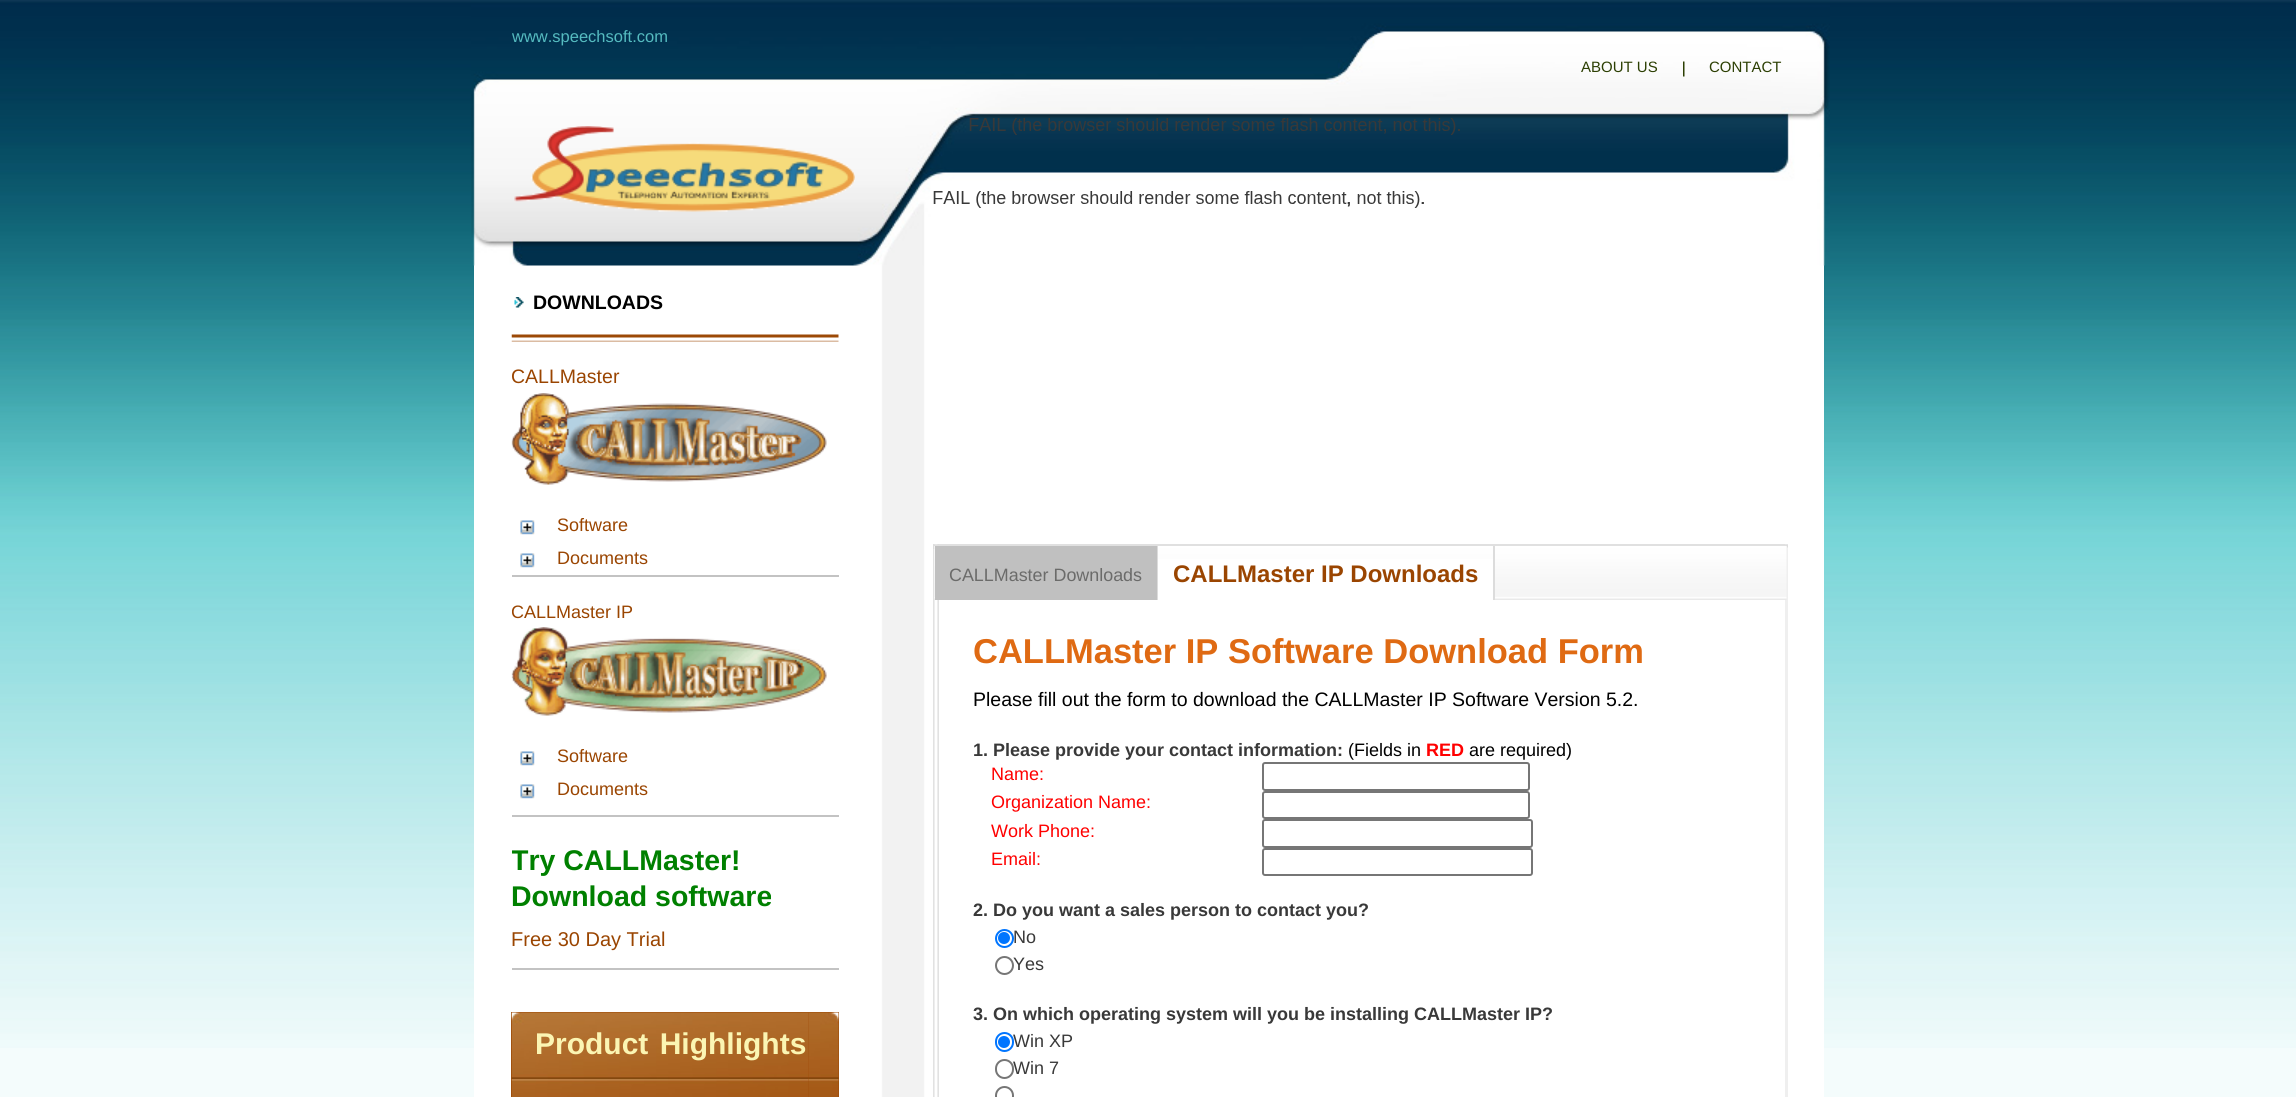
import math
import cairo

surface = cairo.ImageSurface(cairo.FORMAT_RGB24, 2296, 1097)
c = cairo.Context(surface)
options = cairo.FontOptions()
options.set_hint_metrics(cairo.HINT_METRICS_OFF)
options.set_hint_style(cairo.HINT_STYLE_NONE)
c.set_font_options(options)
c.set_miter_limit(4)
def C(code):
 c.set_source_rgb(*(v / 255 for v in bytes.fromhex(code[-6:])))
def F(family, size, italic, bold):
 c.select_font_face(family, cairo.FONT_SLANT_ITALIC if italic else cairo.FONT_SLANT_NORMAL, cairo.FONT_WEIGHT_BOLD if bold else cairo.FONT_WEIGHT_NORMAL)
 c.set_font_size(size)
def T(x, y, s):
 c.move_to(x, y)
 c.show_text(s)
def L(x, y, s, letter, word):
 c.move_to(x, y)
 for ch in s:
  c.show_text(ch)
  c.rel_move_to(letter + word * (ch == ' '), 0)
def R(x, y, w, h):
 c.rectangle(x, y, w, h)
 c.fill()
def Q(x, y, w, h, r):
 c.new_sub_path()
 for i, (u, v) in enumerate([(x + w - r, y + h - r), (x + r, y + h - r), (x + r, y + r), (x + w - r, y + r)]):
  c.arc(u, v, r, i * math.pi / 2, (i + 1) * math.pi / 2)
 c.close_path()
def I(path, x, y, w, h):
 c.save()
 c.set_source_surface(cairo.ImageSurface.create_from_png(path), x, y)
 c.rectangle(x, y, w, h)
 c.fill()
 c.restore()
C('f4fcfc')
c.paint()
I('1.png',0,0,2296,1048)
I('2.png',474,265,1350,832)
I('3.png',471,0,1359,266)
F('Liberation Sans',16.5,0,0)
C('55bbc0')
T(512,42,'www.speechsoft.com')
F('Liberation Sans',15,0,0)
C('2c3f03')
T(1581,72,'ABOUT US')
I('4.png',1683,61,2,16)
T(1709,72,'CONTACT')
I('5.png',514,126,341,86)
I('6.png',969,118,491,17)
I('7.png',933,191,491,17)
F('Liberation Sans',18,0,0)
C('393939')
T(1346,204,',')
T(1420,204,'.')
I('8.png',511,334,328,8)
I('9.png',514,297,10,11)
F('Liberation Sans',19.5,0,1)
C('000000')
T(533,309,'DOWNLOADS')
C('c3c3c3')
R(512,575,327,2)
c.save()
c.rectangle(512,363,327,212)
c.clip()
F('Liberation Sans',19.5,0,0)
C('9a4501')
T(511,383,'CALLMaster')
c.restore()
I('10.png',511,393,316,92)
I('11.png',520,520,15,15)
F('Liberation Sans',18,0,0)
C('9a4501')
T(557,531,'Software')
I('11.png',520,553,15,15)
T(557,564,'Documents')
C('c3c3c3')
R(512,815,327,2)
c.save()
c.rectangle(512,576,327,239)
c.clip()
C('9a4501')
T(511,618,'CALLMaster IP')
c.restore()
I('12.png',511,627,316,89)
I('11.png',520,751,15,15)
C('9a4501')
T(557,762,'Software')
I('11.png',520,784,15,15)
T(557,795,'Documents')
C('c3c3c3')
R(512,968,327,2)
c.save()
c.rectangle(512,833,327,135)
c.clip()
F('Liberation Sans',28.5,0,1)
C('008000')
T(511,870,'Try CALLMaster!')
c.restore()
F('Liberation Sans',28.5,0,1)
C('008000')
T(511,906,'Download software')
F('Liberation Sans',20,0,0)
C('9a4501')
T(511,946,'Free 30 Day Trial')
C('9c4905')
R(511,1012,328,85)
I('13.png',511,1012,298,85)
I('14.png',808,1012,31,85)
F('Liberation Sans',30,0,1)
C('fbf5b3')
L(535,1054,'Product Highlights',0,3)
C('e0e0e0')
R(933,544,855,2)
I('15.png',933,544,6,553)
C('efefef')
R(1785,544,3,553)
I('16.png',933,544,6,5)
I('17.png',1785,544,3,4)
I('18.png',934,546,853,54)
C('c0c0c0')
R(935,546,222,54)
C('dcdcdc')
R(1157,546,1,54)
F('Liberation Sans',17.9,0,0)
C('6b6b6a')
T(949,581,'CALLMaster Downloads')
C('ffffff')
R(1158,559,335,41)
C('dcdcdc')
R(1493,546,2,54)
F('Liberation Sans',24,0,1)
C('9a4501')
T(1173,582,'CALLMaster IP Downloads')
F('Liberation Sans',34.5,0,1)
C('df6a13')
T(973,663,'CALLMaster IP Software Download Form')
F('Liberation Sans',19.5,0,0)
C('000000')
T(973,706,'Please fill out the form to download the CALLMaster IP Software Version 5.2.')
F('Liberation Sans',18,0,1)
C('393939')
T(973,756,'1. Please provide your contact information:')
F('Liberation Sans',18,0,0)
C('000000')
T(1348,756,'(Fields in')
F('Liberation Sans',18,0,1)
C('ff0000')
T(1426,756,'RED')
F('Liberation Sans',18,0,0)
C('000000')
T(1469,756,'are required)')
C('ff0000')
T(991,780,'Name:')
Q(1263,763,266,27,2)
C('767676')
c.stroke()
C('ff0000')
T(991,808,'Organization Name:')
Q(1263,792,266,26,2)
C('767676')
c.stroke()
C('ff0000')
T(991,837,'Work Phone:')
Q(1263,820,269,27,2)
C('767676')
c.stroke()
C('ff0000')
T(991,865,'Email:')
Q(1263,849,269,26,2)
C('767676')
c.stroke()
F('Liberation Sans',18,0,1)
C('393939')
T(973,916,'2. Do you want a sales person to contact you?')
c.new_path()
c.arc(1004.5,938.5,8.5,0,2 * math.pi)
C('0075ff')
c.stroke()
c.arc(1004,938,6,0,2 * math.pi)
c.fill()
F('Liberation Sans',18,0,0)
C('393939')
T(1013,943,'No')
c.new_path()
c.arc(1004.5,965.5,8.5,0,2 * math.pi)
C('767676')
c.stroke()
C('393939')
T(1013,970,'Yes')
F('Liberation Sans',18,0,1)
T(973,1020,'3. On which operating system will you be installing CALLMaster IP?')
Q(996,1033,17,18,8.5)
C('0075ff')
c.stroke()
c.arc(1004,1042,6,0,2 * math.pi)
c.fill()
F('Liberation Sans',18,0,0)
C('393939')
T(1013,1047,'Win XP')
Q(996,1060,17,18,8.5)
C('767676')
c.stroke()
C('393939')
T(1013,1074,'Win 7')
Q(996,1087,17,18,8.5)
C('767676')
c.stroke()
surface.write_to_png('o.png')
